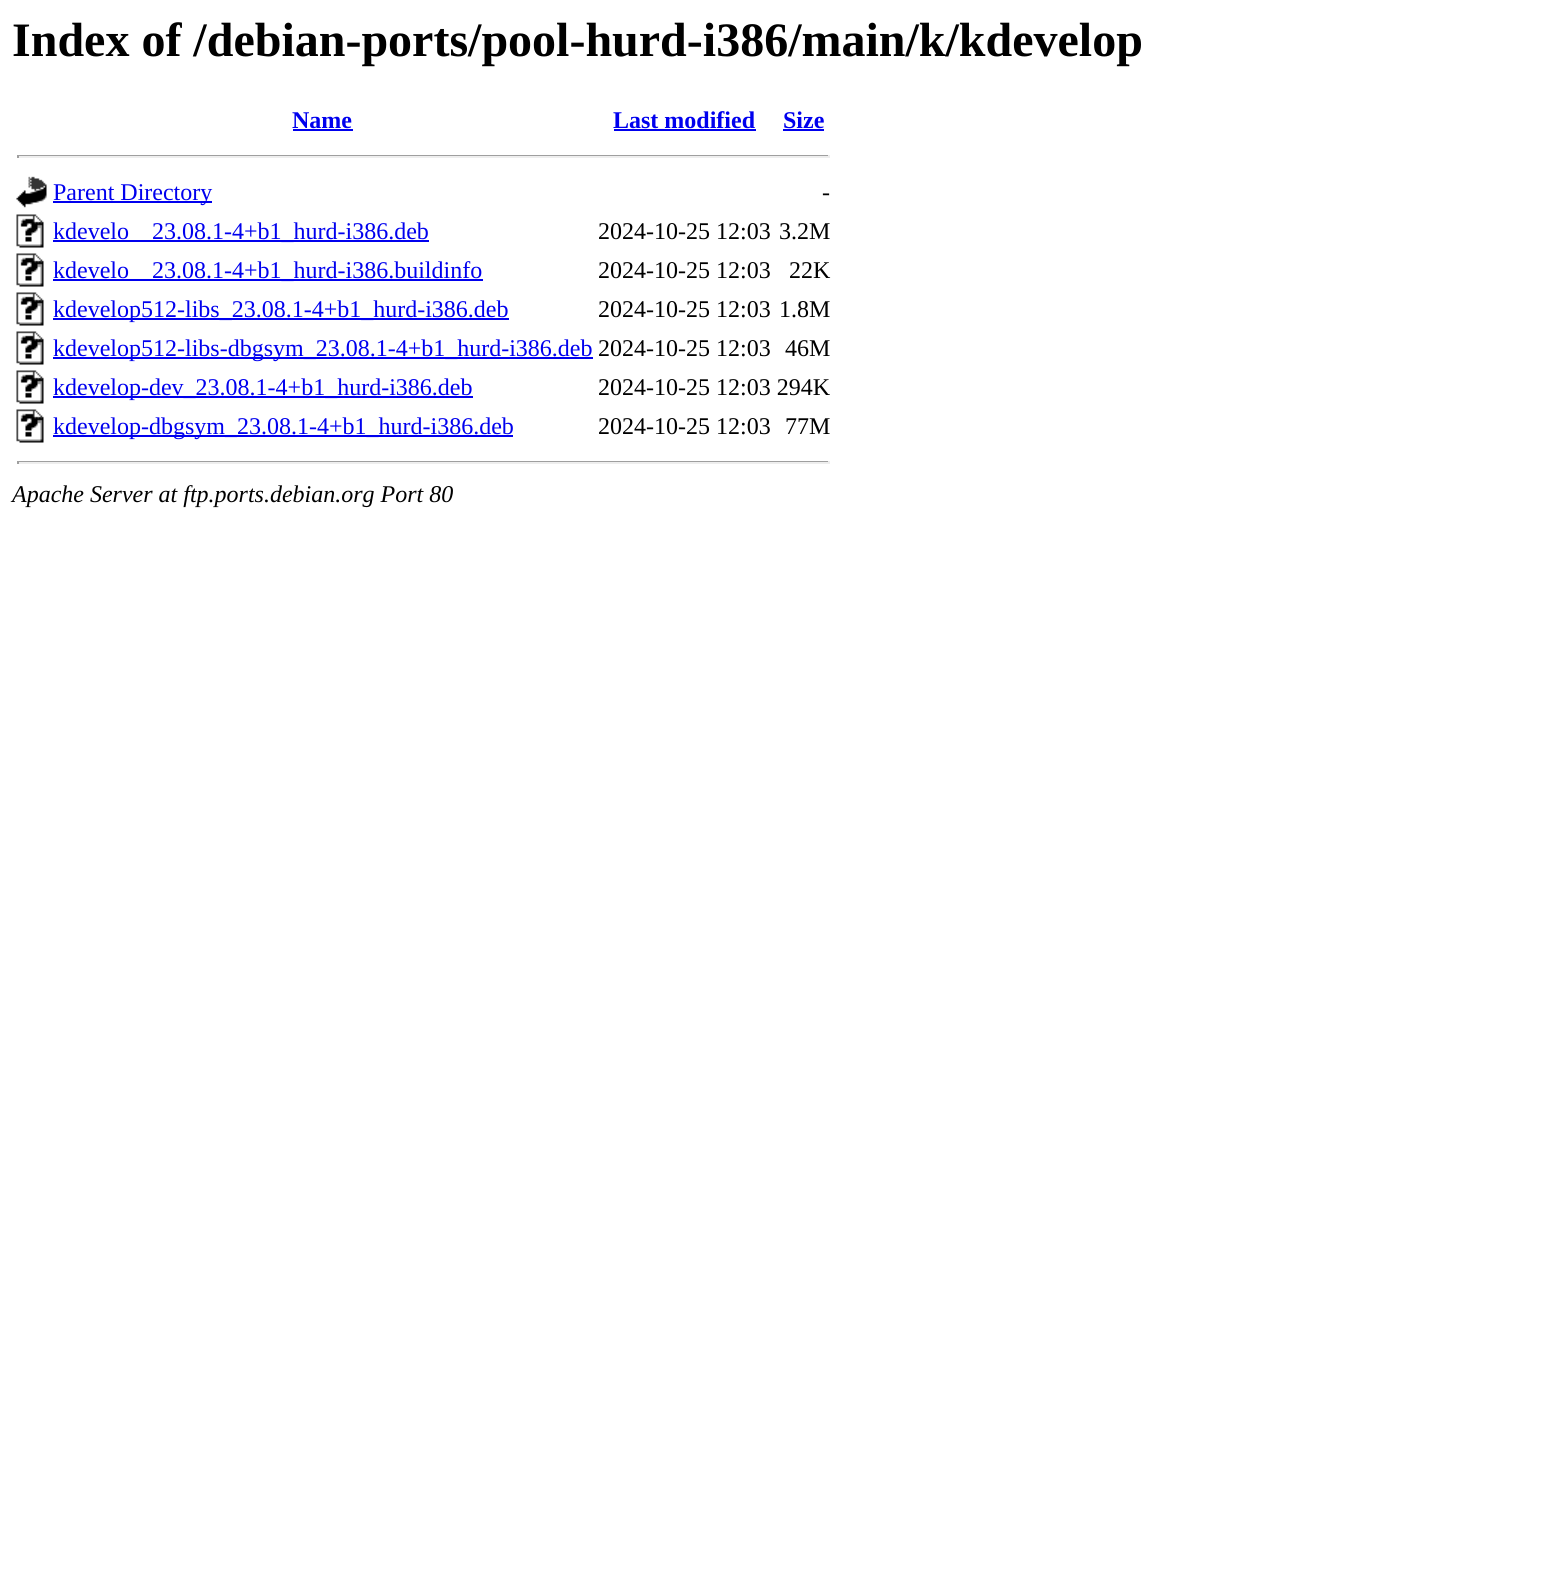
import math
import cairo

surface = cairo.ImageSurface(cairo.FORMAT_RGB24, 1543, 1583)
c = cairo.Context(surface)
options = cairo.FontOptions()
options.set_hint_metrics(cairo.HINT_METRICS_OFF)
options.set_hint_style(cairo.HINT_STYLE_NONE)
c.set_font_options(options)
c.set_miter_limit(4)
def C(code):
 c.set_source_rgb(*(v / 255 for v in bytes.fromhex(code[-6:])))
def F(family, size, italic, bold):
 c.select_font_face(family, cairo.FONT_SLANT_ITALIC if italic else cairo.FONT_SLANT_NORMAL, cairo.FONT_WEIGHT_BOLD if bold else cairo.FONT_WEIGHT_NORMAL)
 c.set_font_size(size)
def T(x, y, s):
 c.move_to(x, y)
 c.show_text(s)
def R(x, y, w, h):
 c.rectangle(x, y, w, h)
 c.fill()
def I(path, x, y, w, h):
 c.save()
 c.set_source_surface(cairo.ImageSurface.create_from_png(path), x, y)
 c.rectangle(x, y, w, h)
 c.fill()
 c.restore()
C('ffffff')
c.paint()
F('Liberation Serif',48,0,1)
C('000000')
T(12,56,'Index of /debian-ports/pool-hurd-i386/main/k/kdevelop')
F('Liberation Serif',24,0,1)
C('0000ee')
T(292,128,'Name')
R(293,129,60,2)
T(613,128,'Last modified')
R(614,129,142,2)
T(783,128,'Size')
R(783,129,41,2)
C('9f9f9f')
R(17,155,813,1)
C('eeeeee')
R(828,155,2,3)
R(17,156,813,2)
C('9f9f9f')
R(17,155,2,3)
I('1.png',16,176,31,32)
C('0000ee')
R(53,201,159,2)
F('Liberation Serif',24,0,0)
T(53,200,'Parent Directory')
C('000000')
T(822,200,'-')
I('2.png',16,214,28,34)
C('0000ee')
T(53,239,'kdevelo')
R(53,240,376,2)
T(152,239,'23.08.1-4+b1_hurd-i386.deb')
C('000000')
T(598,239,'2024-10-25 12:03')
T(779,239,'3.2M')
I('2.png',16,253,28,34)
C('0000ee')
T(53,278,'kdevelo')
R(53,279,430,2)
T(152,278,'23.08.1-4+b1_hurd-i386.buildinfo')
C('000000')
T(598,278,'2024-10-25 12:03')
T(789,278,'22K')
I('2.png',16,292,28,34)
C('0000ee')
R(53,318,456,2)
T(53,317,'kdevelop512-libs_23.08.1-4+b1_hurd-i386.deb')
C('000000')
T(598,317,'2024-10-25 12:03')
T(779,317,'1.8M')
I('2.png',16,331,28,34)
C('0000ee')
R(53,357,540,2)
T(53,356,'kdevelop512-libs-dbgsym_23.08.1-4+b1_hurd-i386.deb')
C('000000')
T(598,356,'2024-10-25 12:03')
T(785,356,'46M')
I('2.png',16,370,28,34)
C('0000ee')
R(53,396,420,2)
T(53,395,'kdevelop-dev_23.08.1-4+b1_hurd-i386.deb')
C('000000')
T(598,395,'2024-10-25 12:03 294K')
I('2.png',16,409,28,34)
C('0000ee')
R(53,435,460,2)
T(53,434,'kdevelop-dbgsym_23.08.1-4+b1_hurd-i386.deb')
C('000000')
T(598,434,'2024-10-25 12:03')
T(785,434,'77M')
C('9f9f9f')
R(17,461,813,1)
C('eeeeee')
R(828,461,2,3)
R(17,462,813,2)
C('9f9f9f')
R(17,461,2,3)
F('Liberation Serif',24,1,0)
C('000000')
T(12,502,'Apache Server at ftp.ports.debian.org Port 80')
surface.write_to_png('o.png')
